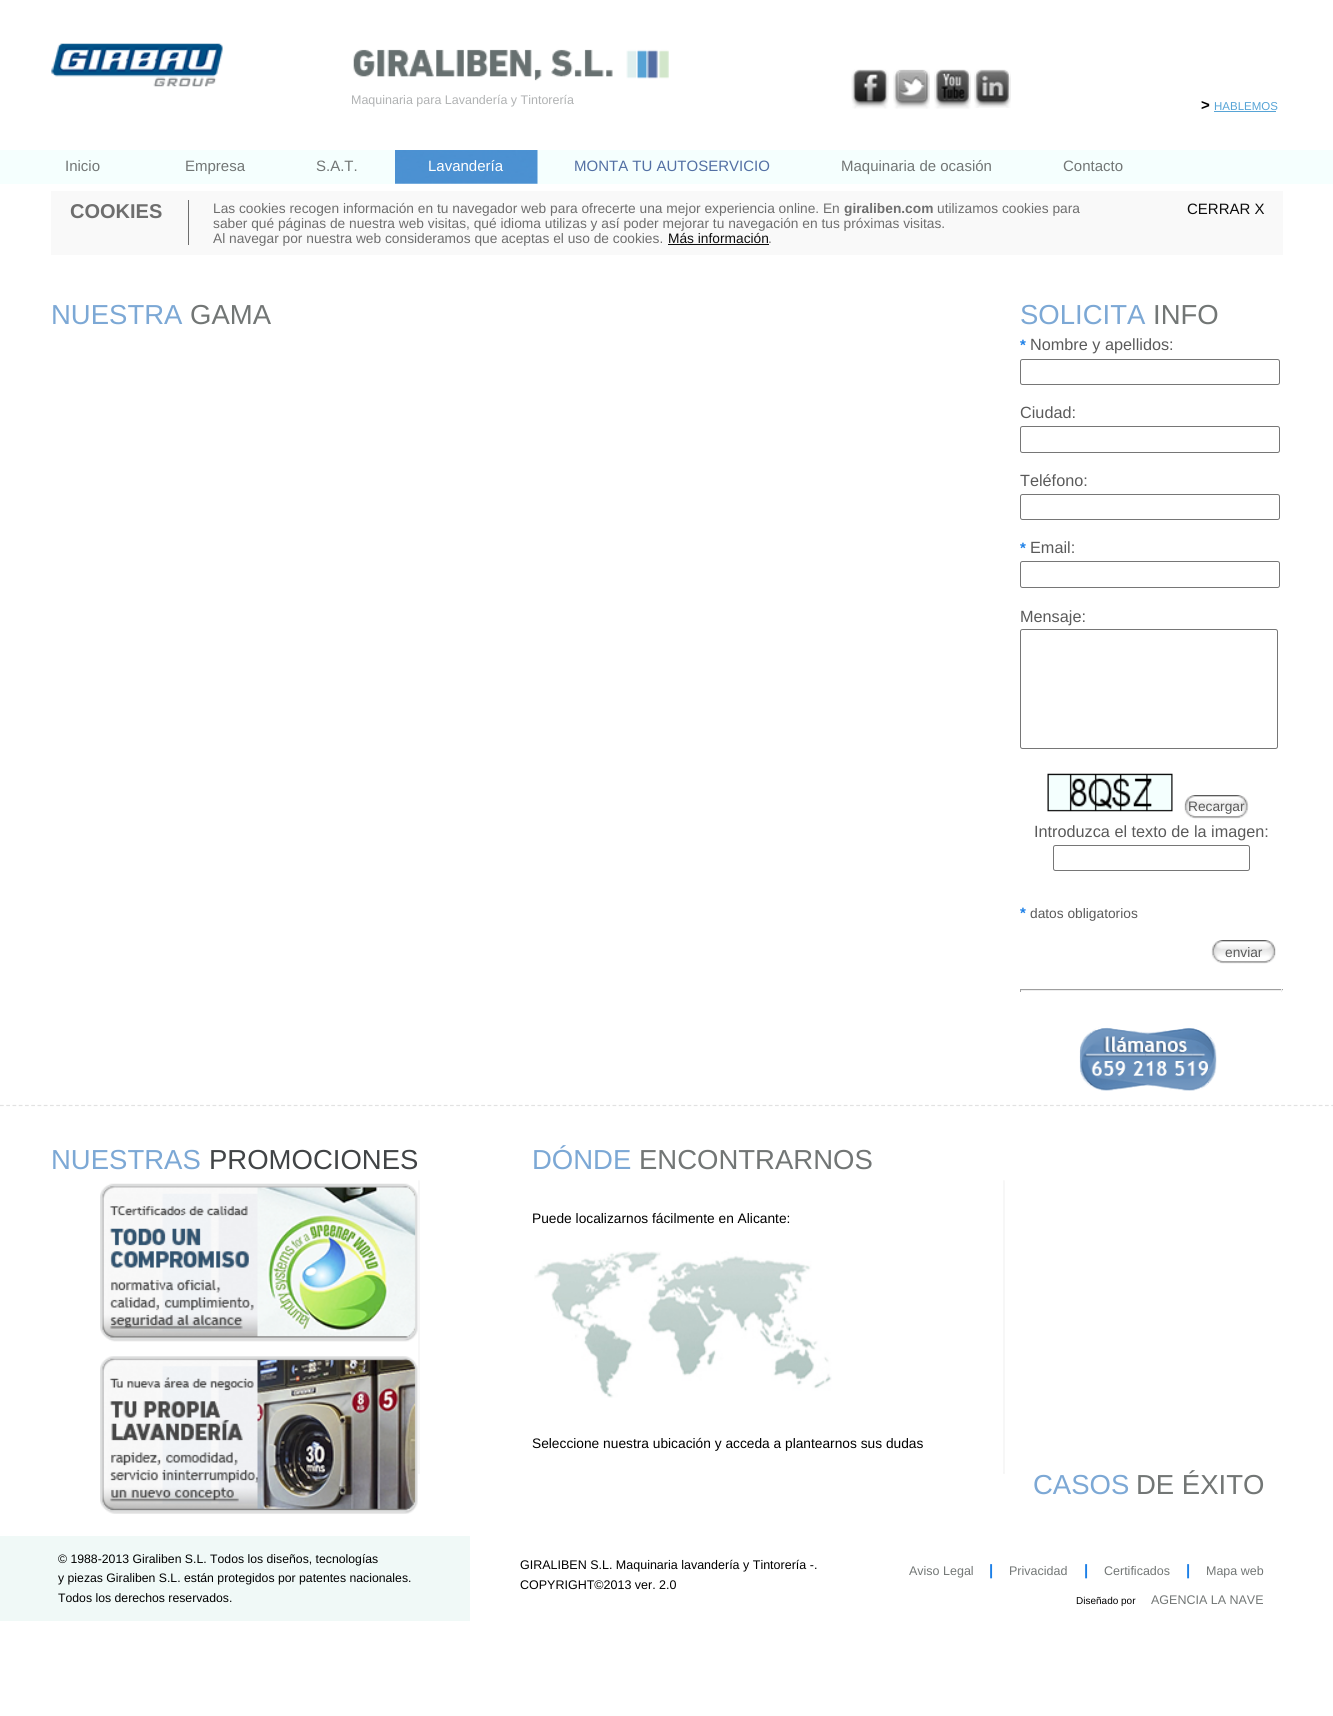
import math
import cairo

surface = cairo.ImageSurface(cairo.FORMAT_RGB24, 1333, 1716)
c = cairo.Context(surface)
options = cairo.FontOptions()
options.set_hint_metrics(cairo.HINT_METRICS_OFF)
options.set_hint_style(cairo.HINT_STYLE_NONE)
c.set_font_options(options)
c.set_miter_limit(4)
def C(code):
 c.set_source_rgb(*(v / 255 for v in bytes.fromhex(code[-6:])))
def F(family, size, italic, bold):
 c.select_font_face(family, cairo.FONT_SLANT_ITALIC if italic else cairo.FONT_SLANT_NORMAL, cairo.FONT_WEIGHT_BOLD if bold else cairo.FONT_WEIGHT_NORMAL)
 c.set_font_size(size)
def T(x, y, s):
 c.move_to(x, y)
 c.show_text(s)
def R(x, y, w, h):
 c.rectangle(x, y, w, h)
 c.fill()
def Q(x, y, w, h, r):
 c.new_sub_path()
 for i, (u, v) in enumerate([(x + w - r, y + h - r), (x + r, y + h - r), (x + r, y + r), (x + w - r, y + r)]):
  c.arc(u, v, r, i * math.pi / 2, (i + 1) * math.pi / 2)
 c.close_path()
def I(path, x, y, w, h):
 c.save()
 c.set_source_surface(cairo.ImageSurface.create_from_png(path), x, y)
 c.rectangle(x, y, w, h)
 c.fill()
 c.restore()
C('ffffff')
c.paint()
C('f5fffe')
R(0,150,1333,34)
I('1.png',51,43,172,44)
I('2.png',353,49,316,32)
F('Liberation Sans',12.5,0,0)
C('b0b2b3')
T(351,104,'Maquinaria para Lavandería y Tintorería')
I('3.png',851,69,38,40)
I('4.png',893,69,37,40)
I('5.png',934,69,37,40)
I('6.png',974,69,37,39)
F('Liberation Sans',15,0,1)
C('000000')
T(1201,110,'>')
F('Liberation Sans',11.5,0,0)
C('57a4d6')
T(1214,110,'HABLEMOS')
R(1214,111,62,1)
F('Liberation Sans',15,0,0)
C('727675')
T(65,171,'Inicio')
T(185,171,'Empresa')
T(316,171,'S.A.T.')
I('7.png',395,150,143,34)
C('ffffff')
T(428,171,'Lavandería')
C('5370a4')
T(574,171,'MONTA TU AUTOSERVICIO')
C('727675')
T(841,171,'Maquinaria de ocasión')
T(1063,171,'Contacto')
C('f9f9f9')
R(51,191,1232,64)
F('Liberation Sans',20,0,1)
C('6e6e6e')
T(70,218,'COOKIES')
R(188,200,1,45)
F('Liberation Sans',13.75,0,0)
T(213,213,'Las cookies recogen información en tu navegador web para ofrecerte una mejor experiencia online. En')
F('Liberation Sans',13.75,0,1)
T(844,213,'giraliben.com')
F('Liberation Sans',13.75,0,0)
T(937,213,'utilizamos cookies para')
T(213,228,'saber qué páginas de nuestra web visitas, qué idioma utilizas y así poder mejorar tu navegación en tus próximas visitas.')
T(213,243,'Al navegar por nuestra web consideramos que aceptas el uso de cookies.')
C('0d0d0d')
T(668,243,'Más información')
R(668,244,101,1)
C('6e6e6e')
T(768,243,'.')
F('Liberation Sans',15,0,0)
C('0d0d0d')
T(1187,214,'CERRAR X')
F('Liberation Sans',27.5,0,0)
C('7ca8d5')
T(51,324,'NUESTRA')
C('727675')
T(190,324,'GAMA')
C('7ca8d5')
T(1020,324,'SOLICITA')
C('727675')
T(1153,324,'INFO')
F('Liberation Sans',15,0,1)
C('1d80e7')
T(1020,350,'*')
F('Liberation Sans',16.25,0,0)
C('5a5a5a')
T(1030,350,'Nombre y apellidos:')
Q(1020.5,359.5,259,25,2)
C('767676')
c.set_line_width(1)
c.stroke()
C('5a5a5a')
T(1020,418,'Ciudad:')
Q(1020.5,426.5,259,26,2)
C('767676')
c.stroke()
C('5a5a5a')
T(1020,486,'Teléfono:')
Q(1020.5,494.5,259,25,2)
C('767676')
c.stroke()
F('Liberation Sans',15,0,1)
C('1d80e7')
T(1020,553,'*')
F('Liberation Sans',16.25,0,0)
C('5a5a5a')
T(1030,553,'Email:')
Q(1020.5,561.5,259,26,2)
C('767676')
c.stroke()
C('5a5a5a')
T(1020,622,'Mensaje:')
Q(1020.5,629.5,257,119,2)
C('767676')
c.stroke()
I('8.png',1047,773,126,39)
I('9.png',1184,795,65,24)
F('Liberation Sans',13.75,0,0)
C('5a5a5a')
T(1188,811,'Recargar')
F('Liberation Sans',16.25,0,0)
T(1034,837,'Introduzca el texto de la imagen:')
Q(1053.5,845.5,196,25,2)
C('767676')
c.stroke()
F('Liberation Sans',15,0,1)
C('1d80e7')
T(1020,918,'*')
F('Liberation Sans',13.75,0,0)
C('5a5a5a')
T(1030,918,'datos obligatorios')
I('10.png',1211,940,65,24)
T(1225,957,'enviar')
C('9f9f9f')
R(1020,989,263,1)
C('eeeeee')
R(1281,989,1,3)
R(1020,990,263,1)
C('9f9f9f')
R(1020,989,1,3)
I('11.png',1079,1027,138,64)
c.new_path()
c.move_to(0,1105.5)
c.line_to(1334,1105.5)
C('e2e2e2')
c.set_line_width(1.2)
c.set_dash([3.75,2.5])
c.stroke()
F('Liberation Sans',27.5,0,0)
C('7ca8d5')
T(51,1169,'NUESTRAS')
C('414446')
T(209,1169,'PROMOCIONES')
I('12.png',100,1183,318,159)
I('13.png',100,1356,318,158)
C('7ca8d5')
T(532,1169,'DÓNDE')
C('727675')
T(639,1169,'ENCONTRARNOS')
F('Liberation Sans',13.75,0,0)
C('000000')
T(532,1223,'Puede localizarnos fácilmente en Alicante:')
I('14.png',534,1251,298,147)
T(532,1448,'Seleccione nuestra ubicación y acceda a plantearnos sus dudas')
I('15.png',418,1180,2,294)
I('15.png',1003,1180,2,294)
F('Liberation Sans',27.5,0,0)
C('7ca8d5')
T(1033,1494,'CASOS')
C('727675')
T(1136,1494,'DE ÉXITO')
C('f0f9f7')
R(0,1536,470,85)
F('Liberation Sans',12.25,0,0)
C('000000')
T(58,1563,'© 1988-2013 Giraliben S.L. Todos los diseños, tecnologías')
T(58,1582,'y piezas Giraliben S.L. están protegidos por patentes nacionales.')
T(58,1602,'Todos los derechos reservados.')
F('Liberation Sans',12.5,0,0)
T(520,1569,'GIRALIBEN S.L. Maquinaria lavandería y Tintorería -.')
T(520,1589,'COPYRIGHT©2013 ver. 2.0')
C('727675')
T(909,1575,'Aviso Legal')
F('Liberation Sans',15,0,1)
C('1d80e7')
T(989,1575,'|')
F('Liberation Sans',12.5,0,0)
C('727675')
T(1009,1575,'Privacidad')
F('Liberation Sans',15,0,1)
C('1d80e7')
T(1084,1575,'|')
F('Liberation Sans',12.5,0,0)
C('727675')
T(1104,1575,'Certificados')
F('Liberation Sans',15,0,1)
C('1d80e7')
T(1186,1575,'|')
F('Liberation Sans',12.5,0,0)
C('727675')
T(1206,1575,'Mapa web')
F('Liberation Sans',10,0,0)
C('000000')
T(1076,1604,'Diseñado por')
F('Liberation Sans',12.5,0,0)
C('727675')
T(1151,1604,'AGENCIA LA NAVE')
surface.write_to_png('o.png')
